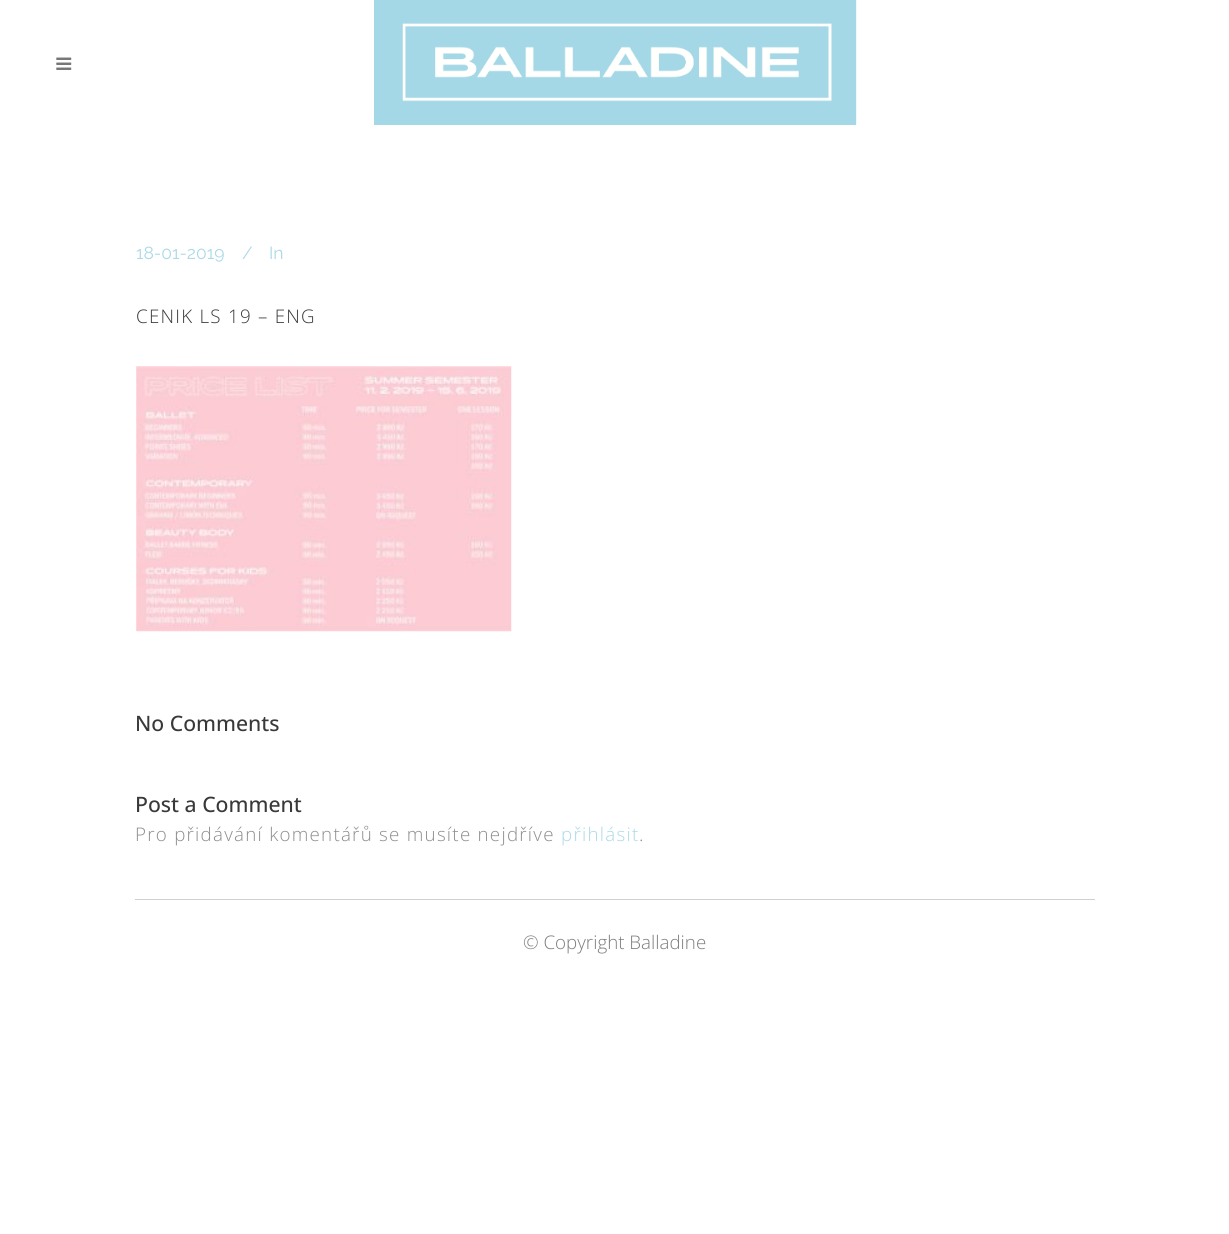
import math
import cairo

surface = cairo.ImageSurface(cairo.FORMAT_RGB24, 1229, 1234)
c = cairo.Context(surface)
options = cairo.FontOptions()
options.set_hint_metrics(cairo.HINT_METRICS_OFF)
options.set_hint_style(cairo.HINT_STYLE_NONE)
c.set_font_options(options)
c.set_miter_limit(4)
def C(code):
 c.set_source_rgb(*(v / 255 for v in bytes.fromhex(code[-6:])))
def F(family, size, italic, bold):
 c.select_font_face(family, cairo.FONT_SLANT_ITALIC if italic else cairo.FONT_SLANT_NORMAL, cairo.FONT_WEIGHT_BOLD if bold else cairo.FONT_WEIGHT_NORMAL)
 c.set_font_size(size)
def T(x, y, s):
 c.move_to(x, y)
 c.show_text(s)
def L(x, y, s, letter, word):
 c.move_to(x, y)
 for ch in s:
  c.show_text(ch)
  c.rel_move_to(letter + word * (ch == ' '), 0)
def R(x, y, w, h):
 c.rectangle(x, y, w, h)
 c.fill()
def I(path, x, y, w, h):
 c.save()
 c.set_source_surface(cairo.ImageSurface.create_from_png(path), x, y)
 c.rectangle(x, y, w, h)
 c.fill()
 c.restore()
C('ffffff')
c.paint()
I('1.png',56,57,16,13)
I('2.png',374,0,483,125)
F('Raleway',17.5,0,0)
C('abd9e8')
T(136,259,'18-01-2019')
T(242,259,'/')
T(269,259,'In')
F('Open Sans Light',18.75,0,0)
C('393939')
L(136,323,'CENIK LS 19 – ENG',1.25,0)
I('3.png',136,366,376,266)
F('Open Sans Medium',21.25,0,0)
T(135,731,'No Comments')
T(135,812,'Post a Comment')
F('Open Sans Light',18.75,0,0)
C('8d8d8d')
L(135,841,'Pro přidávání komentářů se musíte nejdříve',1.25,0)
C('abd9e8')
L(561,841,'přihlásit',1.25,0)
C('8d8d8d')
L(639,841,'.',1.25,0)
C('d0d0d0')
R(135,899,960,1)
C('7d7d7d')
T(523,949,'© Copyright Balladine')
surface.write_to_png('o.png')
